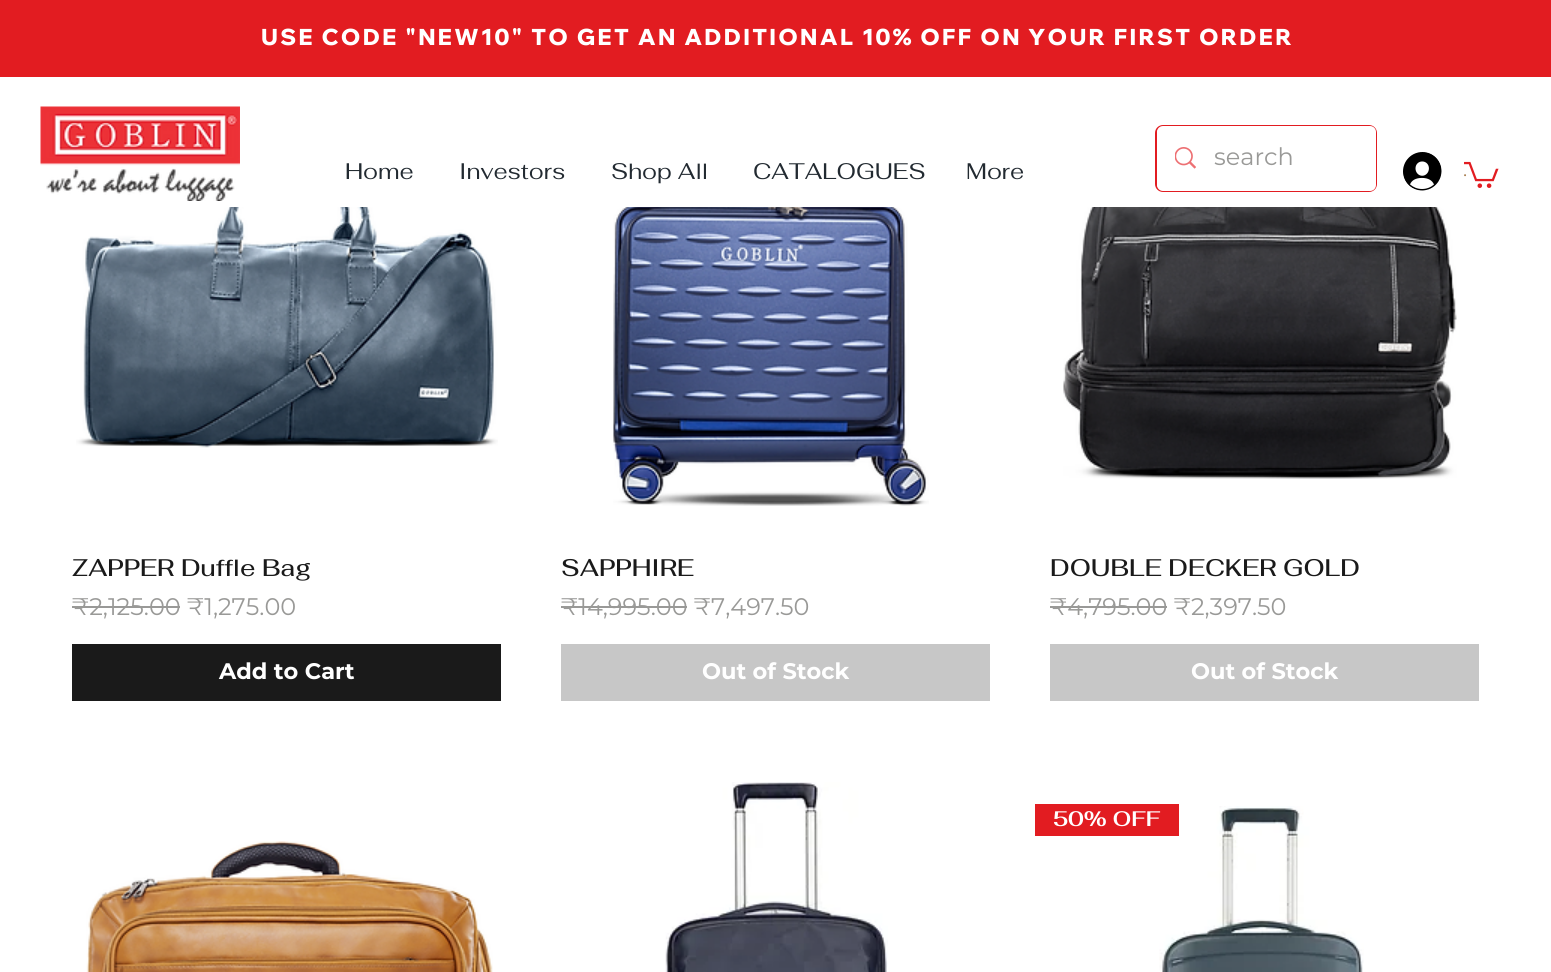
import math
import cairo

surface = cairo.ImageSurface(cairo.FORMAT_RGB24, 1551, 972)
c = cairo.Context(surface)
options = cairo.FontOptions()
options.set_hint_metrics(cairo.HINT_METRICS_OFF)
options.set_hint_style(cairo.HINT_STYLE_NONE)
c.set_font_options(options)
c.set_miter_limit(4)
def C(code):
 c.set_source_rgb(*(v / 255 for v in bytes.fromhex(code[-6:])))
def F(family, size, italic, bold):
 c.select_font_face(family, cairo.FONT_SLANT_ITALIC if italic else cairo.FONT_SLANT_NORMAL, cairo.FONT_WEIGHT_BOLD if bold else cairo.FONT_WEIGHT_NORMAL)
 c.set_font_size(size)
def T(x, y, s):
 c.move_to(x, y)
 c.show_text(s)
def L(x, y, s, letter, word):
 c.move_to(x, y)
 for ch in s:
  c.show_text(ch)
  c.rel_move_to(letter + word * (ch == ' '), 0)
def R(x, y, w, h):
 c.rectangle(x, y, w, h)
 c.fill()
def Q(x, y, w, h, r):
 c.new_sub_path()
 for i, (u, v) in enumerate([(x + w - r, y + h - r), (x + r, y + h - r), (x + r, y + r), (x + w - r, y + r)]):
  c.arc(u, v, r, i * math.pi / 2, (i + 1) * math.pi / 2)
 c.close_path()
def I(path, x, y, w, h):
 c.save()
 c.set_source_surface(cairo.ImageSurface.create_from_png(path), x, y)
 c.rectangle(x, y, w, h)
 c.fill()
 c.restore()
C('ffffff')
c.paint()
C('e21c21')
R(0,0,1551,77)
F('Wix Madefor Display ExtraBold',22.5,0,0)
C('ffffff')
L(261,45,'USE CODE "NEW10" TO GET AN ADDITIONAL 10% OFF ON YOUR FIRST ORDER',2.25,0)
I('1.png',40,106,200,95)
Q(1156,126,220,65,7)
C('e21c21')
c.stroke()
C('ffffff')
Q(1157,126,219,65,6)
c.fill()
I('2.png',1175,147,21,22)
F('Montserrat',24,0,0)
C('999997')
T(1214,165,'search')
F('Fahkwang',22.5,0,0)
C('222a31')
T(345,179,'Home')
T(459,179,'Investors')
T(611,179,'Shop All')
T(753,179,'CATALOGUES')
T(966,179,'More')
F('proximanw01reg',18,0,0)
C('a67a4b')
T(1463,176,'.')
I('3.png',1464,161,35,27)
I('4.png',1403,152,39,39)
I('5.png',76,207,422,241)
F('Fahkwang Medium',24,0,0)
C('1a1a1a')
T(72,576,'ZAPPER Duffle Bag')
F('Montserrat',24,0,0)
C('999997')
T(72,615,'₹2,125.00 ₹1,275.00')
R(72,606,108,2)
C('1a1a1a')
R(72,644,429,57)
F('Montserrat',22.5,0,1)
C('ffffff')
T(219,679,'Add to Cart')
I('6.png',613,207,316,299)
F('Fahkwang Medium',24,0,0)
C('1a1a1a')
T(561,576,'SAPPHIRE')
F('Montserrat',24,0,0)
C('999997')
T(561,615,'₹14,995.00 ₹7,497.50')
R(561,606,126,2)
C('c7c7c7')
R(561,644,429,57)
F('Montserrat',22.5,0,1)
C('ffffff')
T(702,679,'Out of Stock')
I('7.png',1063,207,394,272)
F('Fahkwang Medium',24,0,0)
C('1a1a1a')
T(1050,576,'DOUBLE DECKER GOLD')
F('Montserrat',24,0,0)
C('999997')
T(1050,615,'₹4,795.00 ₹2,397.50')
R(1050,606,117,2)
C('c7c7c7')
R(1050,644,429,57)
F('Montserrat',22.5,0,1)
C('ffffff')
T(1191,679,'Out of Stock')
I('8.png',665,782,223,190)
I('9.png',1159,806,205,166)
C('e21c21')
R(1035,804,144,32)
F('Fahkwang SemiBold',21,0,0)
C('ffffff')
T(1053,826,'50% OFF')
I('10.png',86,841,407,131)
surface.write_to_png('o.png')
